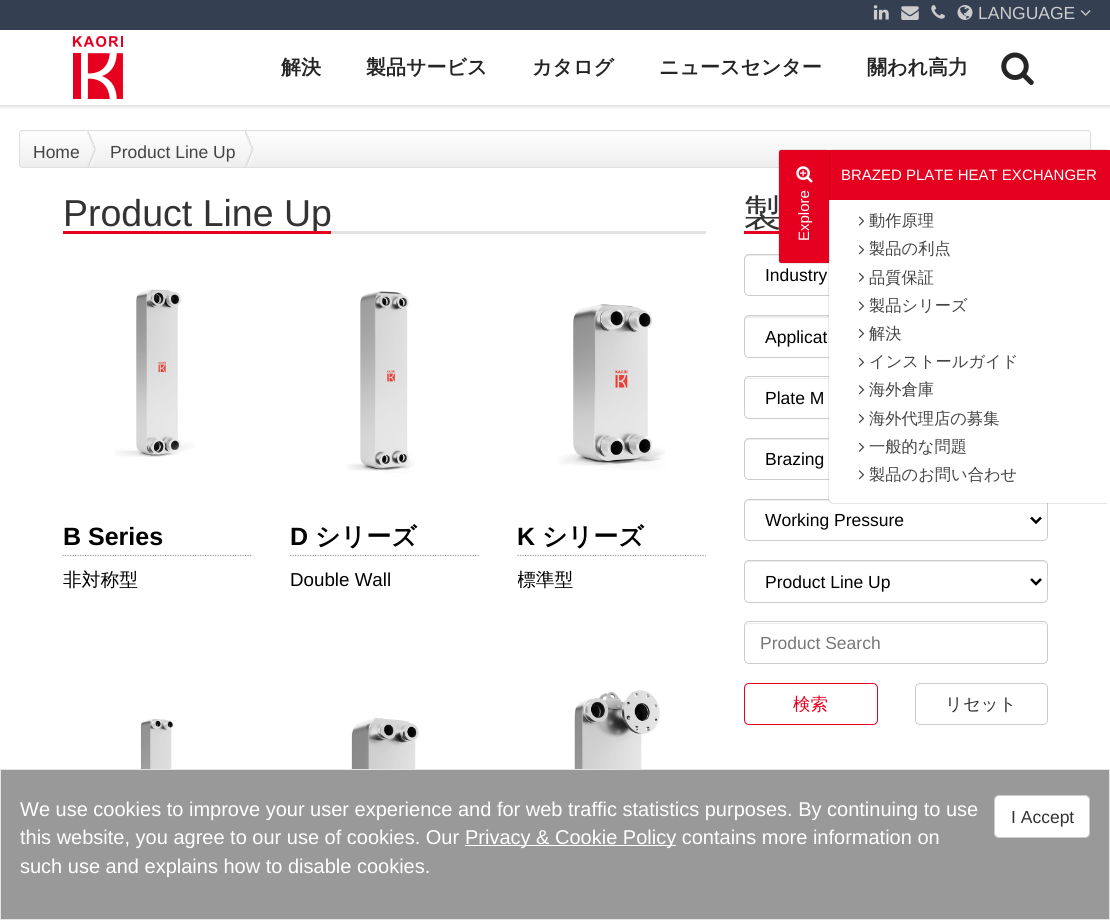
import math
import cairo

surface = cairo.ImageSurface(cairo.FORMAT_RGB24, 1110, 920)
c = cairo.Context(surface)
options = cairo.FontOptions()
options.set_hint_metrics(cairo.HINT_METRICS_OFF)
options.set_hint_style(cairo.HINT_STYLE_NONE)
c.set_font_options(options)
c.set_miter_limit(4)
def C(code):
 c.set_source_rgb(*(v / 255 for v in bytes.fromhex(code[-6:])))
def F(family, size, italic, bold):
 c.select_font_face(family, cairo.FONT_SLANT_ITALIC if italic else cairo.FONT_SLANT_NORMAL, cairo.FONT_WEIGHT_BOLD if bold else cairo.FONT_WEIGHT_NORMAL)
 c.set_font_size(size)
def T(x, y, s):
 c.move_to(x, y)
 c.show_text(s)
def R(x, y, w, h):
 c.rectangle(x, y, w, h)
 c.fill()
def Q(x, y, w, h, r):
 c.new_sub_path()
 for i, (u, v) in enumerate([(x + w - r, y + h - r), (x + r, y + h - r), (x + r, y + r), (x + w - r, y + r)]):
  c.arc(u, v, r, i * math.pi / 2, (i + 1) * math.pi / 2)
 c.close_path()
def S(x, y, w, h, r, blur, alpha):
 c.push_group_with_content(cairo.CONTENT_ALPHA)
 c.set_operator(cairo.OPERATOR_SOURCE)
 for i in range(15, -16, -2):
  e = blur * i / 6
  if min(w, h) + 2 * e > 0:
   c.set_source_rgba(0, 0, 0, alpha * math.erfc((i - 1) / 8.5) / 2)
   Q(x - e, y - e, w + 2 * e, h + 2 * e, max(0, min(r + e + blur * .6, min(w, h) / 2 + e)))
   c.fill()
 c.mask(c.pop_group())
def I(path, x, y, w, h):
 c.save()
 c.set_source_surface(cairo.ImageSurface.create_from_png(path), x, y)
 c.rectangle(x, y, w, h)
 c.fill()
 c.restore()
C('ffffff')
c.paint()
c.save()
c.rectangle(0,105,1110,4)
c.clip()
C('000000')
S(0,31,1110,75,0,2.5,.2)
c.restore()
C('353f52')
R(0,0,1110,30)
I('1.png',873,5,16,15)
I('2.png',901,6,18,14)
I('3.png',931,5,14,14)
I('4.png',957,5,16,15)
F('Liberation Sans',17.5,0,0)
C('cccccc')
T(978,19,'LANGUAGE')
I('5.png',1080,10,11,6)
I('6.png',72,36,51,63)
F('WenQuanYi Zen Hei',20,0,1)
C('252525')
T(281,74,'解決')
T(366,74,'製品サービス')
T(532,74,'カタログ')
T(659,74,'ニュースセンター')
T(867,74,'關われ高力')
I('7.png',1001,52,33,33)
C('eeeeee')
Q(19,130,1072,38,4)
c.fill()
I('8.png',19,131,1072,35)
Q(19.5,130.5,1071,37,3.5)
C('dedede')
c.set_line_width(1)
c.stroke()
I('9.png',87,131,9,36)
F('Liberation Sans',17.5,0,0)
C('444444')
T(33,158,'Home')
I('10.png',245,131,10,36)
T(110,158,'Product Line Up')
F('Liberation Sans',37.5,0,0)
C('333333')
T(63,226,'Product Line Up')
C('e60020')
R(63,231,268,3)
C('e2e2e2')
R(331,231,375,3)
I('11.png',114,289,81,168)
c.new_path()
c.move_to(62.5,555.5)
c.line_to(252.5,555.5)
C('9c9c9c')
c.set_line_width(1.2)
c.set_dash([1.25,1.25])
c.stroke()
F('Liberation Sans',25,0,1)
C('000000')
T(63,545,'B Series')
F('WenQuanYi Zen Hei Medium',18.75,0,0)
T(63,586,'非対称型')
I('12.png',346,291,69,182)
c.new_path()
c.move_to(290,555.5)
c.line_to(480,555.5)
C('9c9c9c')
c.stroke()
F('Liberation Sans',25,0,1)
C('000000')
T(290,545,'D')
F('WenQuanYi Zen Hei',25,0,1)
T(315,545,'シリーズ')
F('Liberation Sans',18.75,0,0)
T(290,586,'Double Wall')
I('13.png',558,304,108,166)
c.new_path()
c.move_to(517.5,555.5)
c.line_to(706,555.5)
C('9c9c9c')
c.stroke()
F('Liberation Sans',25,0,1)
C('000000')
T(517,545,'K')
F('WenQuanYi Zen Hei',25,0,1)
T(542,545,'シリーズ')
c.save()
c.rectangle(518,566,188,27)
c.clip()
F('WenQuanYi Zen Hei Medium',18.75,0,0)
T(517,586,'標準型')
c.restore()
I('14.png',140,719,34,50)
I('15.png',351,718,69,51)
I('16.png',574,690,86,79)
F('WenQuanYi Zen Hei Medium',37.5,0,0)
C('333333')
T(744,226,'製')
C('e60020')
R(744,231,35,3)
C('ececec')
c.new_path()
c.move_to(749,256)
c.line_to(1042,256)
c.curve_to(1045,256,1046,258,1046,260)
c.curve_to(1046,257,1045,255,1042,255)
c.line_to(749,255)
c.curve_to(746,255,745,257,745,260)
c.curve_to(745,258,747,256,749,256)
c.close_path()
c.fill()
Q(744.5,254.5,303,41,4.5)
C('cccccc')
c.set_line_width(1)
c.set_dash([])
c.stroke()
F('Liberation Sans',17.5,0,0)
C('000000')
T(765,281,'Industry')
C('ececec')
c.new_path()
c.move_to(749,318)
c.line_to(1042,318)
c.curve_to(1045,318,1046,319,1046,321)
c.curve_to(1046,318,1045,316,1042,316)
c.line_to(749,316)
c.curve_to(746,316,745,318,745,321)
c.curve_to(745,319,747,318,749,318)
c.close_path()
c.fill()
Q(744.5,315.5,303,42,4.5)
C('cccccc')
c.stroke()
C('000000')
T(765,343,'Applicat')
C('ececec')
c.new_path()
c.move_to(749,379)
c.line_to(1042,379)
c.curve_to(1044,379,1045,379,1046,380)
c.curve_to(1045,379,1044,378,1042,378)
c.line_to(749,378)
c.curve_to(747,378,745,380,745,382)
c.curve_to(745,380,747,379,749,379)
c.close_path()
c.fill()
Q(744.5,376.5,303,42,4.5)
C('cccccc')
c.stroke()
C('000000')
T(765,404,'Plate M')
C('ececec')
c.new_path()
c.move_to(749,440)
c.line_to(1042,440)
c.curve_to(1045,440,1046,442,1046,444)
c.curve_to(1046,441,1045,439,1042,439)
c.line_to(749,439)
c.curve_to(746,439,745,441,745,444)
c.curve_to(745,442,747,440,749,440)
c.close_path()
c.fill()
Q(744.5,438.5,303,41,4.5)
C('cccccc')
c.stroke()
C('000000')
T(765,465,'Brazing')
C('ececec')
c.new_path()
c.move_to(749,501)
c.line_to(1042,501)
c.curve_to(1045,501,1046,503,1046,505)
c.curve_to(1046,502,1045,500,1042,500)
c.line_to(749,500)
c.curve_to(746,500,745,502,745,505)
c.curve_to(745,503,747,501,749,501)
c.close_path()
c.fill()
Q(744.5,499.5,303,41,4.5)
C('cccccc')
c.stroke()
c.new_path()
c.move_to(1031,517.5)
c.line_to(1036,522.5)
c.line_to(1041,517.5)
C('000000')
c.set_line_width(2.5)
c.stroke()
T(765,526,'Working Pressure')
C('ececec')
c.new_path()
c.move_to(749,562)
c.line_to(1042,562)
c.curve_to(1045,562,1046,564,1046,566)
c.curve_to(1046,563,1045,561,1042,561)
c.line_to(749,561)
c.curve_to(746,561,745,563,745,566)
c.curve_to(745,564,747,562,749,562)
c.close_path()
c.fill()
Q(744.5,560.5,303,42,4.5)
C('cccccc')
c.set_line_width(1)
c.stroke()
c.new_path()
c.move_to(1031,579)
c.line_to(1036,584)
c.line_to(1041,579)
C('000000')
c.set_line_width(2.5)
c.stroke()
T(765,588,'Product Line Up')
C('ececec')
c.new_path()
c.move_to(749,624)
c.line_to(1042,624)
c.curve_to(1045,624,1046,625,1046,628)
c.curve_to(1046,625,1045,623,1042,623)
c.line_to(749,623)
c.curve_to(746,623,745,625,745,628)
c.curve_to(745,625,747,624,749,624)
c.close_path()
c.fill()
Q(744.5,621.5,303,42,4.5)
C('cccccc')
c.set_line_width(1)
c.stroke()
C('777777')
T(760,649,'Product Search')
Q(744.5,683.5,133,41,4.5)
C('e60020')
c.stroke()
F('WenQuanYi Zen Hei Medium',17.5,0,0)
T(793,710,'検索')
Q(915.5,683.5,132,41,4.5)
C('cccccc')
c.stroke()
C('333333')
T(945,710,'リセット')
C('000000')
S(829,150,281,353,4,.5,.4)
C('ffffff')
c.new_path()
c.move_to(829,150)
c.line_to(1110,150)
c.line_to(1110,503)
c.line_to(833,503)
c.curve_to(831,503,829,501,829,499)
c.close_path()
c.fill()
C('e60020')
R(829,150,281,50)
F('Liberation Sans',15,0,0)
C('ffffff')
T(841,180,'BRAZED PLATE HEAT EXCHANGER')
C('000000')
S(779,150,50,113,2.5,.5,.4)
C('e60020')
c.new_path()
c.move_to(781.5,150)
c.line_to(829,150)
c.line_to(829,263)
c.line_to(781.5,263)
c.curve_to(780,263,779,262,779,260.5)
c.line_to(779,152.5)
c.curve_to(779,151,780,150,781.5,150)
c.close_path()
c.fill()
I('17.png',796,166,17,17)
C('ffffff')
c.save()
c.translate(809,241)
c.rotate(-90 * math.pi / 180)
T(0,0,'Explore')
c.restore()
I('18.png',858,216,7,10)
F('WenQuanYi Zen Hei Medium',16.25,0,0)
C('444444')
T(869,226,'動作原理')
I('19.png',858,245,7,10)
T(869,254,'製品の利点')
I('20.png',858,272,7,10)
T(869,283,'品質保証')
I('18.png',858,301,7,10)
T(869,311,'製品シリーズ')
I('21.png',858,329,7,9)
T(869,339,'解決')
I('20.png',858,357,7,10)
T(869,367,'インストールガイド')
I('19.png',858,385,7,10)
T(869,395,'海外倉庫')
I('21.png',858,414,7,9)
T(869,424,'海外代理店の募集')
I('20.png',858,442,7,10)
T(869,452,'一般的な問題')
I('19.png',858,470,7,10)
T(869,480,'製品のお問い合わせ')
C('999999')
c.rectangle(.5,769.5,1109,150)
c.fill_preserve()
C('e5e5e5')
c.stroke()
F('Liberation Sans',20,0,0)
C('ffffff')
T(20,816,'We use cookies to improve your user experience and for web traffic statistics purposes. By continuing to use')
T(20,844,'this website, you agree to our use of cookies. Our')
R(465,845,65,1)
T(465,844,'Privacy &')
R(530,845,146,1)
T(555,844,'Cookie Policy contains more information on')
T(20,873,'such use and explains how to disable cookies.')
Q(994.5,795.5,95,42,4.5)
c.fill_preserve()
C('cccccc')
c.stroke()
F('Liberation Sans',17.5,0,0)
C('333333')
T(1011,823,'I Accept')
surface.write_to_png('o.png')
